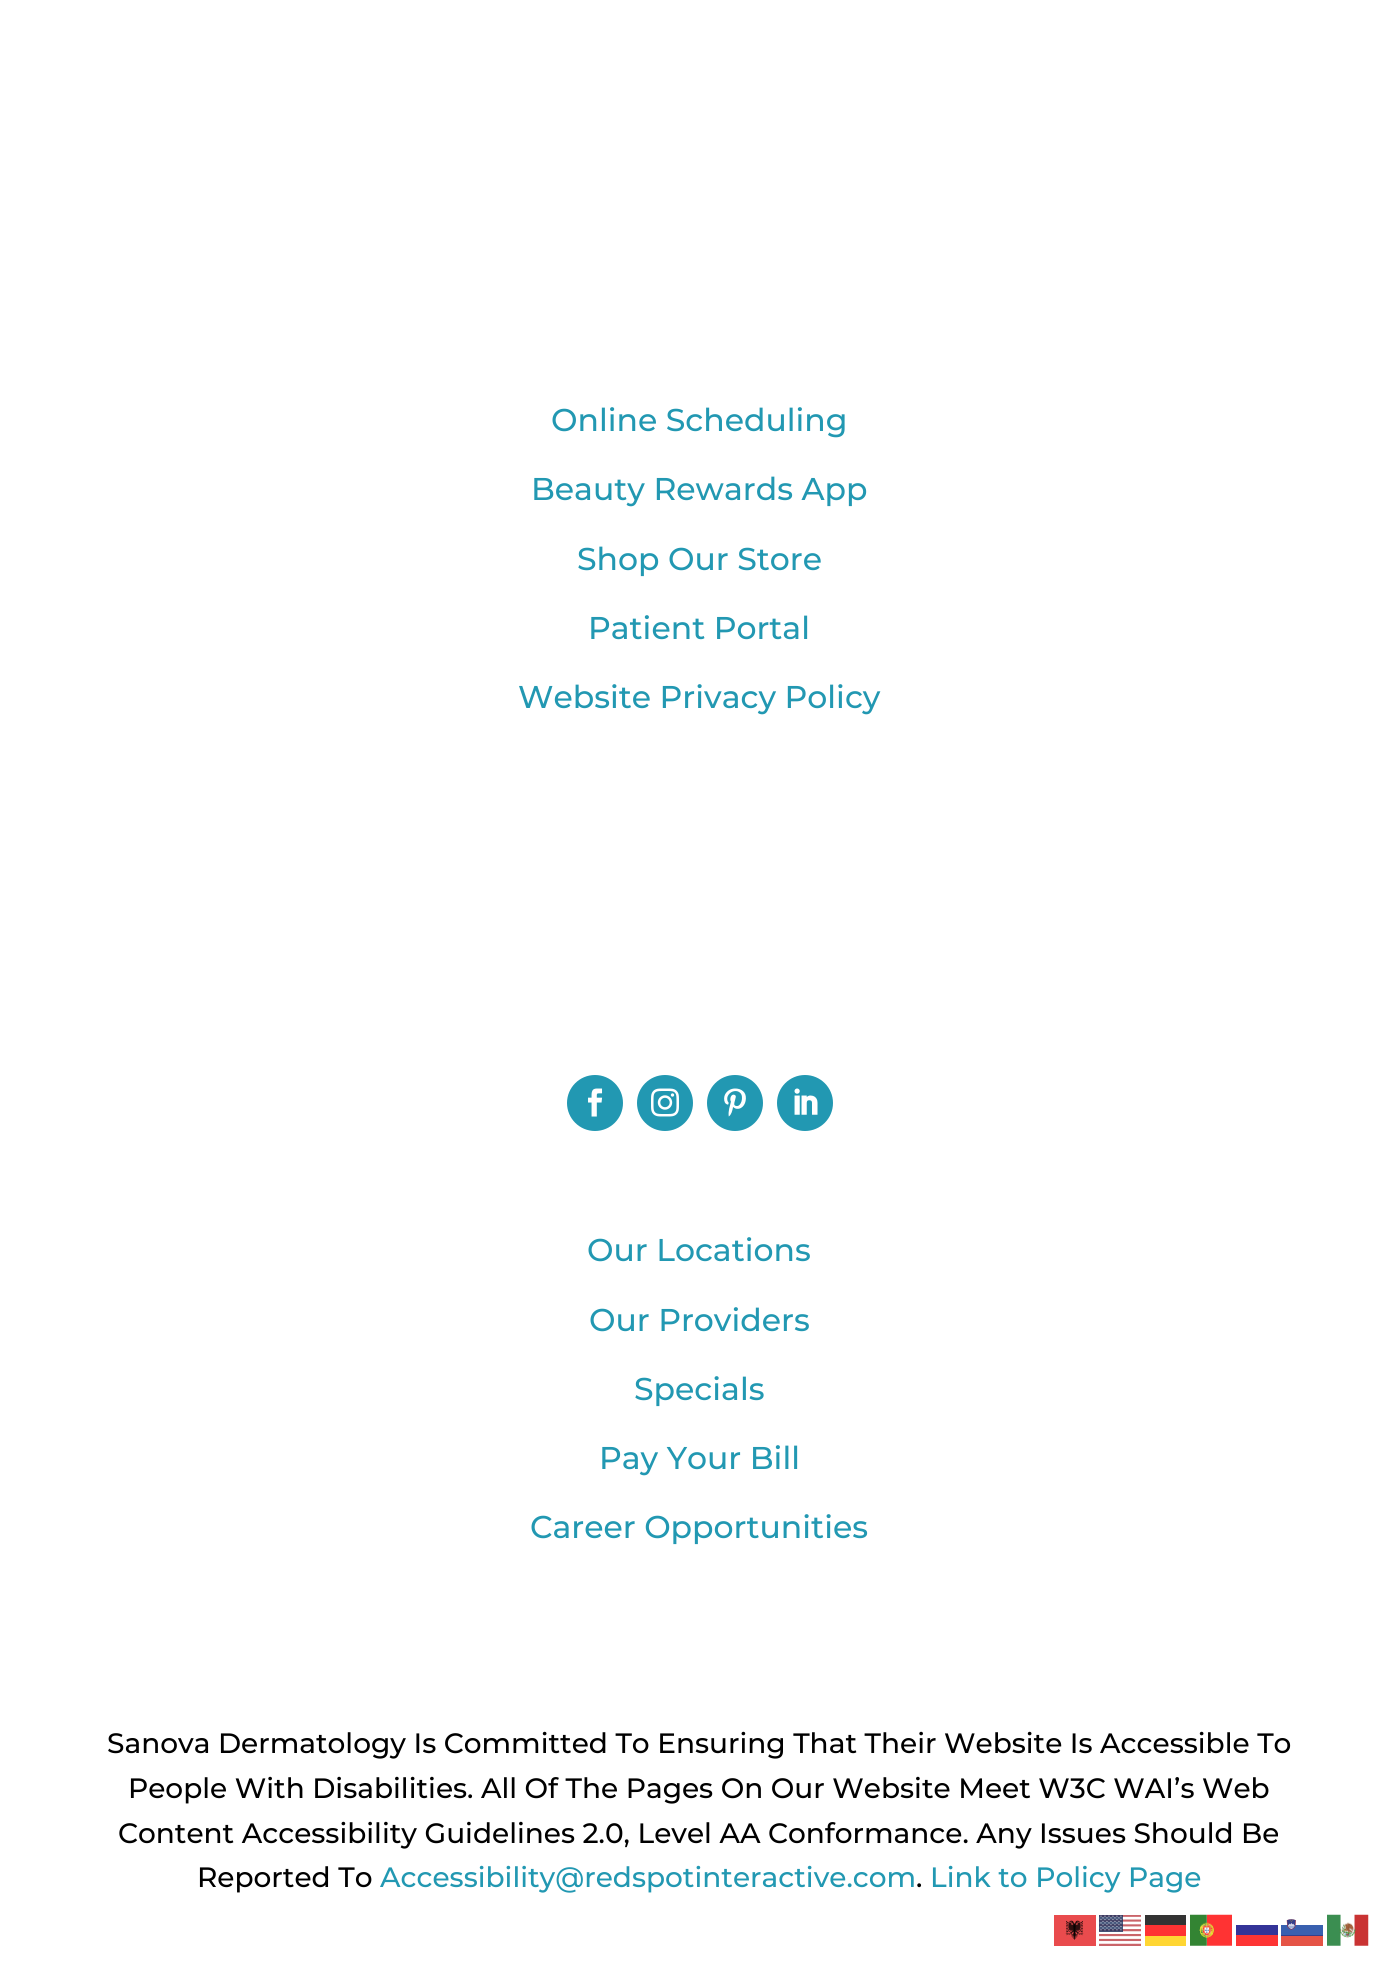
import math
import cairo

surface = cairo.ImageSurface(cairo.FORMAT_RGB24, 1398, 1981)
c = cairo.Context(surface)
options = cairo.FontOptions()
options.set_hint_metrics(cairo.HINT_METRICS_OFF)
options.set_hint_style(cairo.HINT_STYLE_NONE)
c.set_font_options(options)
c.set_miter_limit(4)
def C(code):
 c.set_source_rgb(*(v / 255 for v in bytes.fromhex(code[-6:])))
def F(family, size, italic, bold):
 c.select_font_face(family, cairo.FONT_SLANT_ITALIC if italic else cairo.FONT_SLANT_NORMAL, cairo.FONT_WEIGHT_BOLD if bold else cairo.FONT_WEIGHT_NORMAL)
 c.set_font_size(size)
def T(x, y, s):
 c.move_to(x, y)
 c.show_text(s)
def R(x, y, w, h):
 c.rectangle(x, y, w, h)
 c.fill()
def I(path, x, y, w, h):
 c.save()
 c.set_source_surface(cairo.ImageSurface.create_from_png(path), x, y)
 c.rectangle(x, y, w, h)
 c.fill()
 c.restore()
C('ffffff')
c.paint()
F('Montserrat Medium',31.5,0,0)
C('2298b2')
T(551,431,'Online Scheduling')
T(531,500,'Beauty Rewards App')
T(577,570,'Shop Our Store')
T(588,639,'Patient Portal')
T(518,708,'Website Privacy Policy')
c.new_path()
c.arc(595,1103,28,0,2 * math.pi)
c.fill()
I('1.png',588,1088,15,29)
c.arc(665,1103,28,0,2 * math.pi)
c.fill()
I('2.png',651,1088,28,29)
c.arc(735,1103,28,0,2 * math.pi)
c.fill()
I('3.png',724,1088,22,29)
c.arc(805,1103,28,0,2 * math.pi)
c.fill()
I('4.png',794,1088,24,27)
T(587,1261,'Our Locations')
T(589,1331,'Our Providers')
T(634,1400,'Specials')
T(599,1469,'Pay Your Bill')
T(530,1538,'Career Opportunities')
F('Montserrat Medium',28,0,0)
C('000000')
T(107,1753,'Sanova Dermatology Is Committed To Ensuring That Their Website Is Accessible To')
T(128,1798,'People With Disabilities. All Of The Pages On Our Website Meet W3C WAI’s Web')
T(118,1843,'Content Accessibility Guidelines 2.0, Level AA Conformance. Any Issues Should Be')
T(197,1887,'Reported To')
C('2298b2')
T(380,1887,'Accessibility@redspotinteractive.com')
C('000000')
T(916,1887,'.')
C('2298b2')
T(930,1887,'Link to Policy Page')
I('5.png',1054,1915,42,31)
I('6.png',1099,1915,42,31)
C('333333')
R(1145,1915,41,10)
I('7.png',1190,1914,42,32)
I('8.png',1281,1919,42,27)
I('9.png',1327,1914,42,32)
C('ff3333')
R(1145,1925,41,11)
C('343498')
R(1236,1925,42,10)
C('ffd633')
R(1145,1936,41,10)
C('fe3434')
R(1236,1935,42,11)
surface.write_to_png('o.png')
